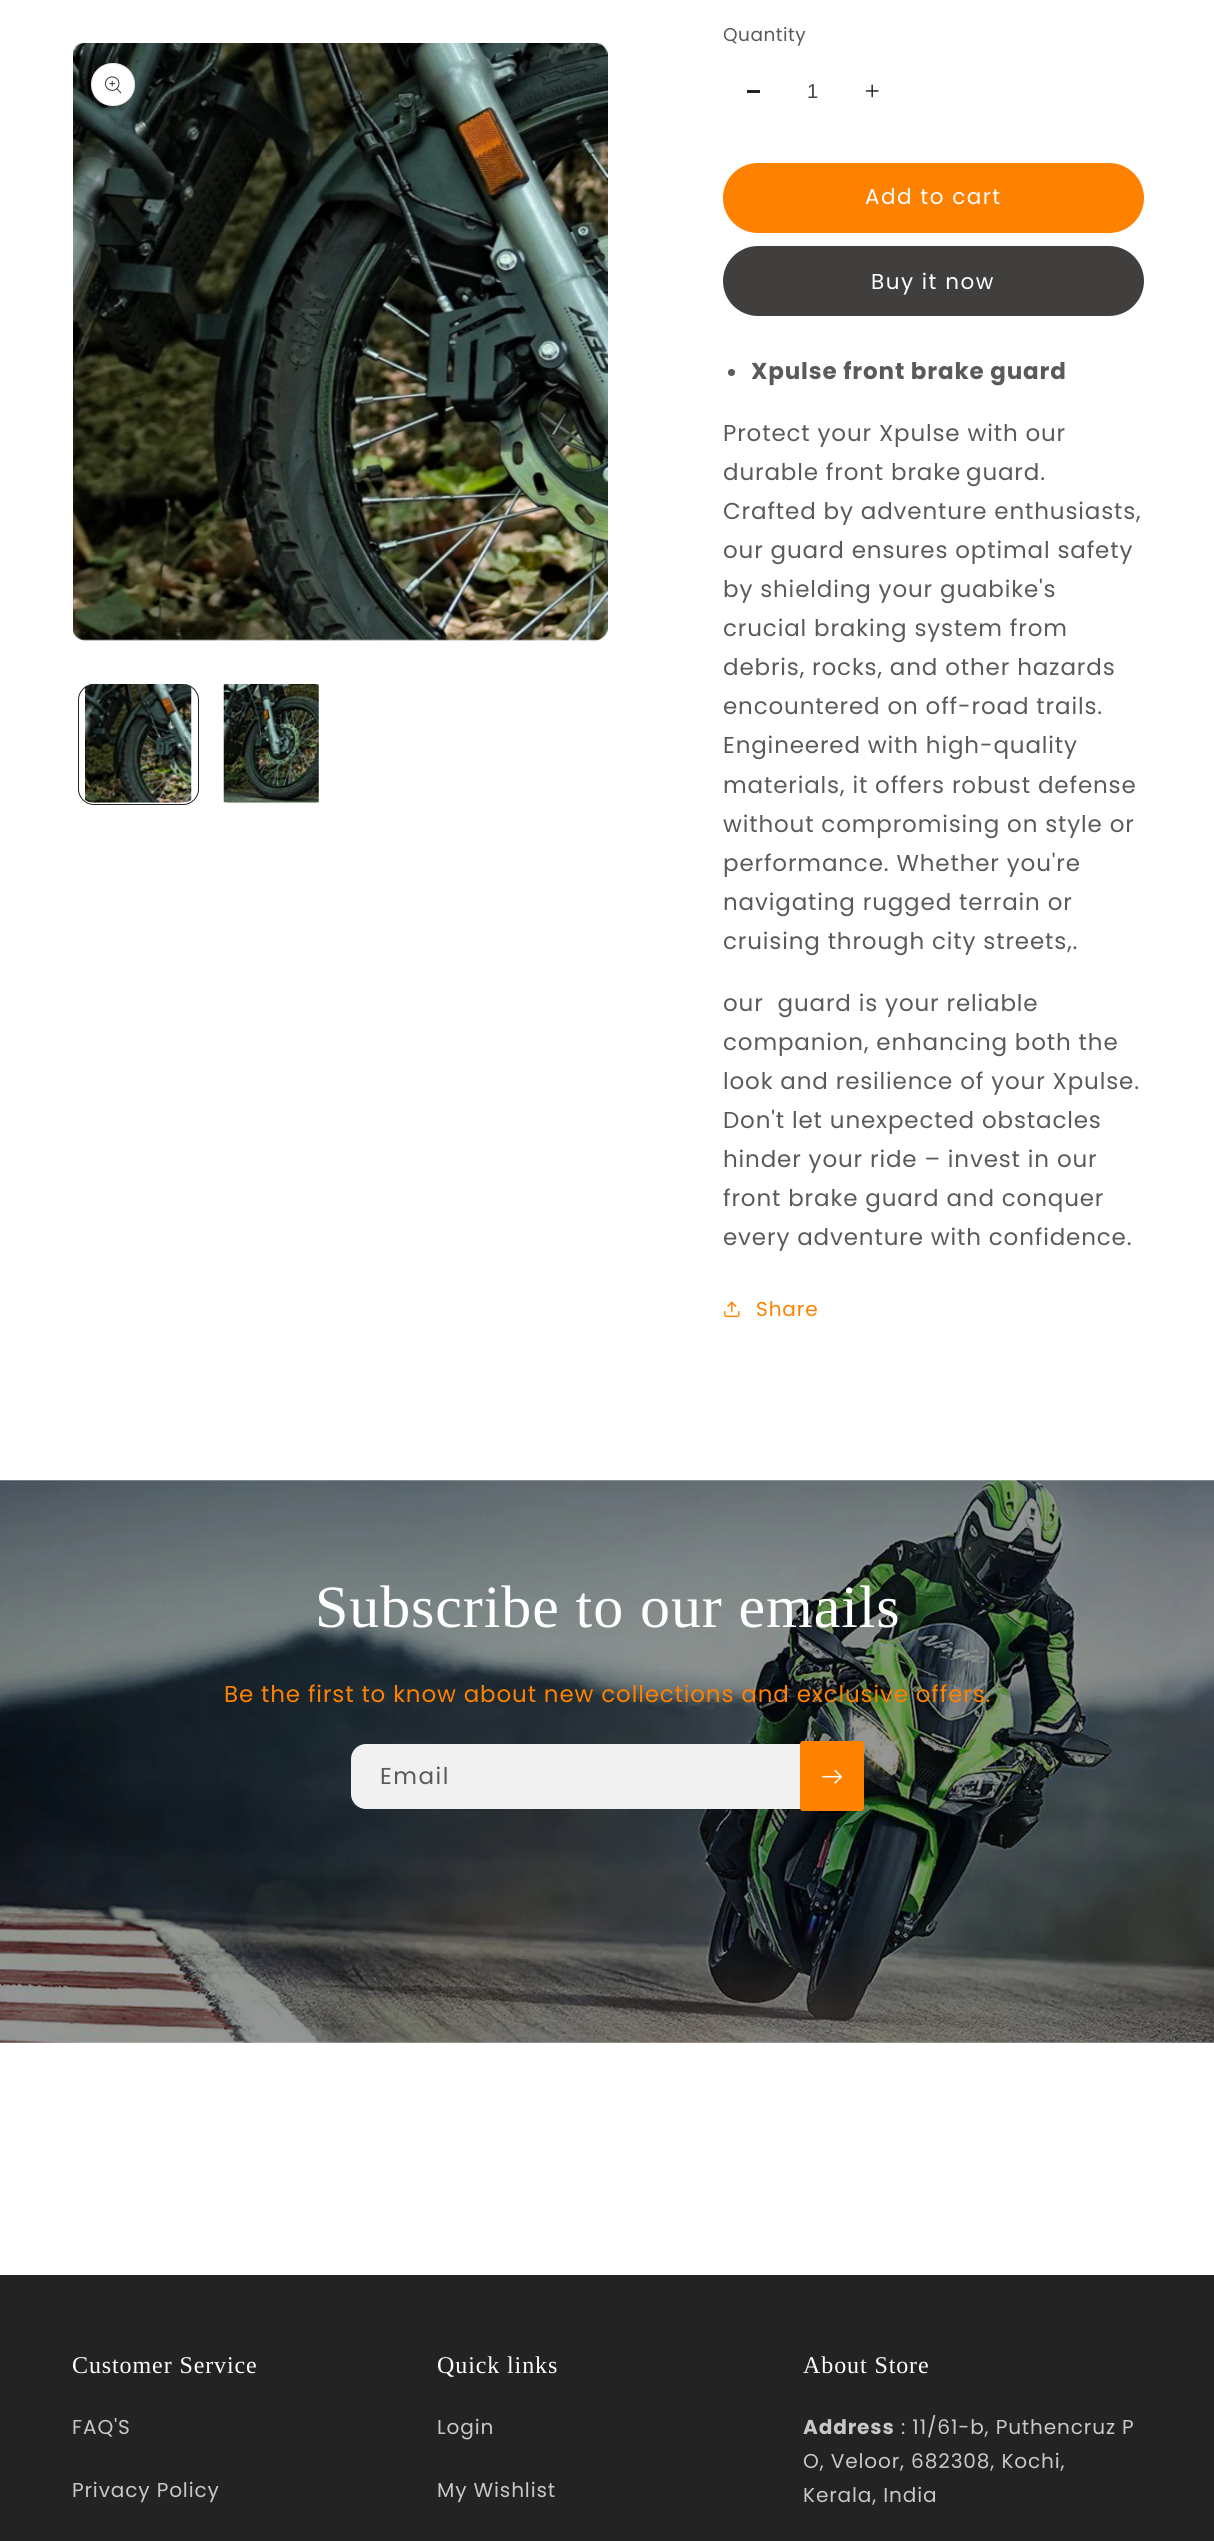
import math
import cairo

surface = cairo.ImageSurface(cairo.FORMAT_RGB24, 1214, 2541)
c = cairo.Context(surface)
options = cairo.FontOptions()
options.set_hint_metrics(cairo.HINT_METRICS_OFF)
options.set_hint_style(cairo.HINT_STYLE_NONE)
c.set_font_options(options)
c.set_miter_limit(4)
def C(code):
 c.set_source_rgb(*(v / 255 for v in bytes.fromhex(code[-6:])))
def F(family, size, italic, bold):
 c.select_font_face(family, cairo.FONT_SLANT_ITALIC if italic else cairo.FONT_SLANT_NORMAL, cairo.FONT_WEIGHT_BOLD if bold else cairo.FONT_WEIGHT_NORMAL)
 c.set_font_size(size)
def T(x, y, s):
 c.move_to(x, y)
 c.show_text(s)
def L(x, y, s, letter, word):
 c.move_to(x, y)
 for ch in s:
  c.show_text(ch)
  c.rel_move_to(letter + word * (ch == ' '), 0)
def R(x, y, w, h):
 c.rectangle(x, y, w, h)
 c.fill()
def Q(x, y, w, h, r):
 c.new_sub_path()
 for i, (u, v) in enumerate([(x + w - r, y + h - r), (x + r, y + h - r), (x + r, y + r), (x + w - r, y + r)]):
  c.arc(u, v, r, i * math.pi / 2, (i + 1) * math.pi / 2)
 c.close_path()
def I(path, x, y, w, h):
 c.save()
 c.set_source_surface(cairo.ImageSurface.create_from_png(path), x, y)
 c.rectangle(x, y, w, h)
 c.fill()
 c.restore()
C('ffffff')
c.paint()
I('1.png',73,43,535,598)
C('ffffff')
Q(91,63,44,43,21.5)
c.fill()
Q(91.5,63.5,43,42,21)
c.set_source_rgba(0.137,0.137,0.137,0.1)
c.set_line_width(1)
c.stroke()
I('2.png',105,76,16,18)
Q(78.5,684.5,120,120,15.5)
C('232323')
c.stroke()
I('3.png',85,684,107,119)
I('4.png',223,684,96,119)
F('Poppins',18.5,0,0)
C('5a5a5a')
L(723,41,'Quantity',.5,0)
C('232323')
R(747,90,13,3)
F('Liberation Sans',20.1,0,0)
C('444444')
T(807,98,'1')
I('5.png',865,84,14,14)
C('ff8100')
Q(723,163,421,70,35)
c.fill()
F('Poppins',21.5,0,0)
C('ffffff')
L(865,204,'Add to cart',1.5,0)
C('413f3e')
Q(723,246,421,70,35)
c.fill()
C('ffffff')
L(871,289,'Buy it now',1.5,0)
C('5a5a5a')
c.new_path()
c.arc(731.5,372.5,3.5,0,2 * math.pi)
c.fill()
F('Poppins',23,0,1)
L(751,379,'Xpulse front brake guard',.85,0)
F('Poppins',23,0,0)
L(723,441,'Protect your Xpulse with our',.85,0)
L(723,480,'durable front brake',.85,0)
L(966,480,'guard.',.85,0)
L(723,519,'Crafted by adventure enthusiasts,',.85,0)
L(723,558,'our guard ensures optimal safety',.85,0)
L(723,597,'by shielding your guabike\'s',.85,0)
L(723,636,'crucial braking system from',.85,0)
L(723,675,'debris, rocks, and other hazards',.85,0)
L(723,714,'encountered on off-road trails.',.85,0)
L(723,753,'Engineered with high-quality',.85,0)
L(723,793,'materials, it offers robust defense',.85,0)
L(723,832,'without compromising on style or',.85,0)
L(723,871,'performance. Whether you\'re',.85,0)
L(723,910,'navigating rugged terrain or',.85,0)
L(723,949,'cruising through city streets,.',.85,0)
L(723,1011,'our  guard is your reliable',.85,0)
L(723,1050,'companion, enhancing both the',.85,0)
L(723,1089,'look and resilience of your Xpulse.',.85,0)
L(723,1128,'Don\'t let unexpected obstacles',.85,0)
L(723,1167,'hinder your ride – invest in our',.85,0)
L(723,1206,'front brake guard and conquer',.85,0)
L(723,1245,'every adventure with confidence.',.85,0)
I('6.png',724,1301,16,17)
F('Poppins',20.1,0,0)
C('ff8100')
L(756,1316,'Share',.85,0)
I('7.png',0,1480,1214,563)
F('Liberation Serif',60,0,0)
C('ffffff')
L(315,1627,'Subscribe to our emails',.9,0)
F('Poppins',23,0,0)
C('ff8100')
L(224,1702,'Be the first to know about new collections and exclusive offers.',.85,0)
C('f1f1f1')
Q(351,1744,513,65,15)
c.fill()
C('ff8100')
Q(800,1741,64,70,3)
c.fill()
I('8.png',822,1769,20,15)
C('5a5a5a')
L(380,1784,'Email',1.5,0)
C('232323')
R(0,2275,1214,266)
F('Liberation Serif',24,0,0)
C('ffffff')
L(72,2373,'Customer Service',.9,0)
F('Poppins',20.1,0,0)
C('c8c8c8')
L(72,2434,'FAQ\'S',.85,0)
L(72,2497,'Privacy Policy',.85,0)
F('Liberation Serif',24,0,0)
C('ffffff')
L(437,2373,'Quick links',.9,0)
F('Poppins',20.1,0,0)
C('c8c8c8')
L(437,2434,'Login',.85,0)
L(437,2497,'My Wishlist',.85,0)
F('Liberation Serif',24,0,0)
C('ffffff')
L(803,2373,'About Store',.9,0)
F('Poppins',20.1,0,1)
C('c8c8c8')
L(803,2434,'Address',.85,0)
F('Poppins',20.1,0,0)
L(901,2434,': 11/61-b, Puthencruz P',.85,0)
L(803,2468,'O, Veloor, 682308, Kochi,',.85,0)
L(803,2502,'Kerala, India',.85,0)
surface.write_to_png('o.png')
